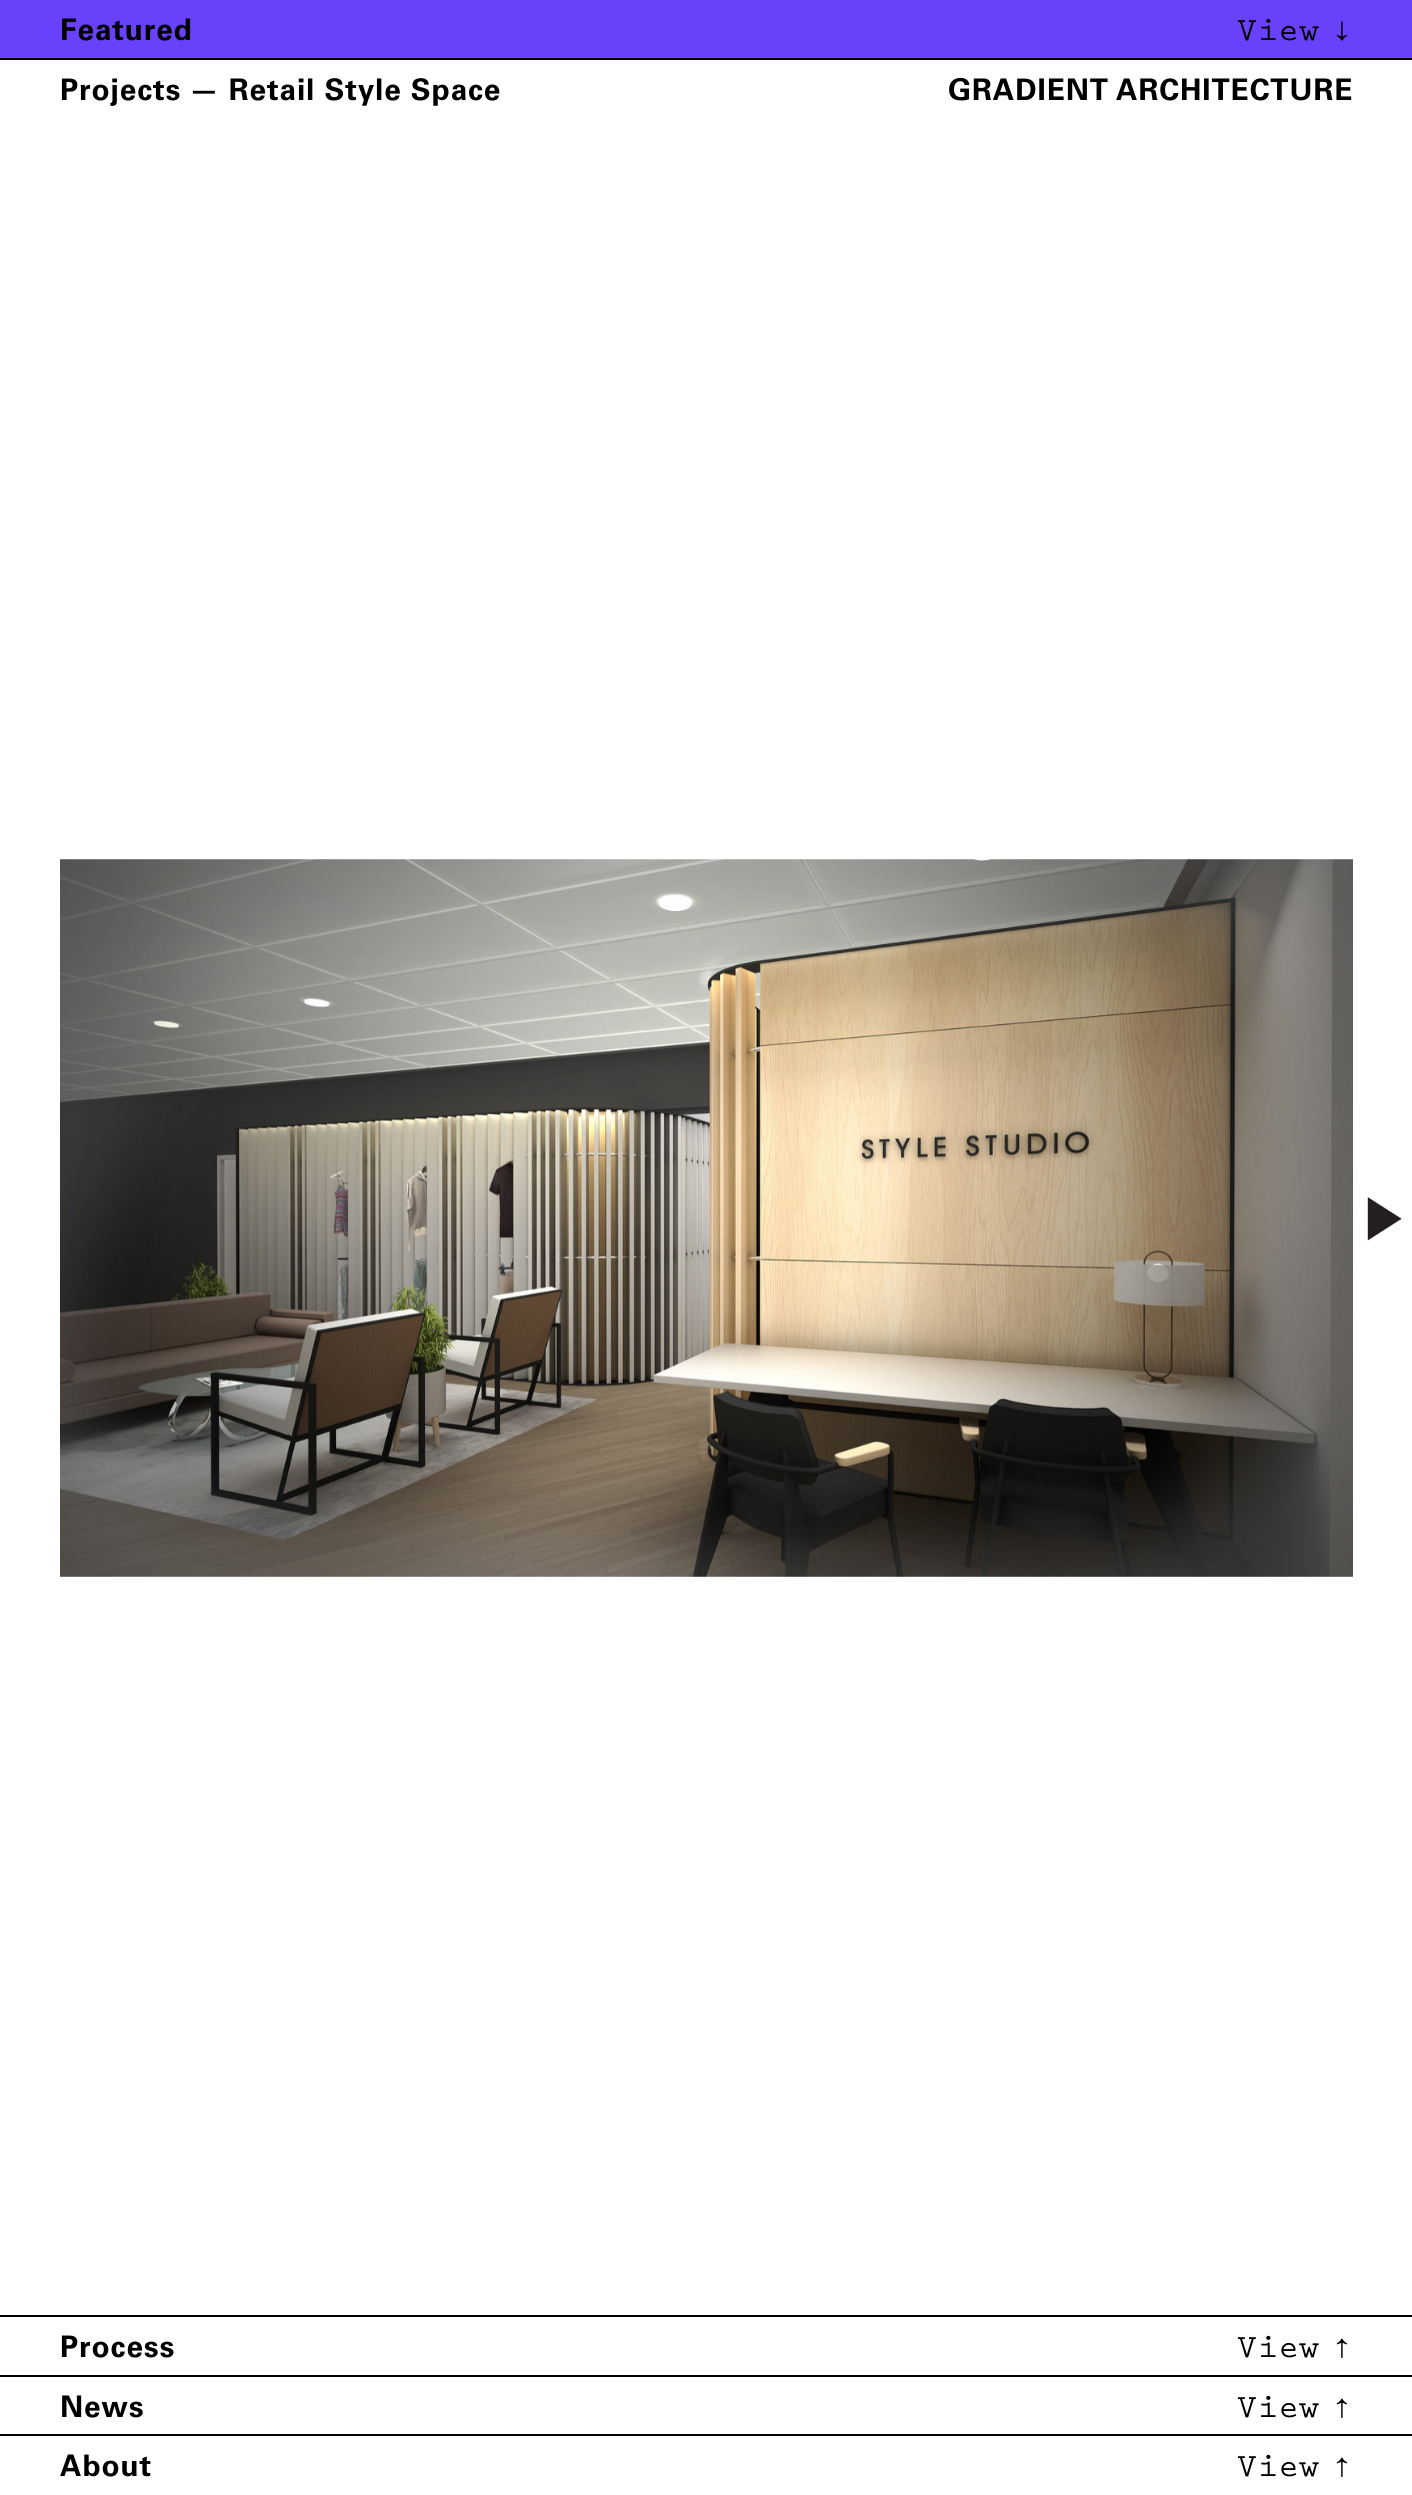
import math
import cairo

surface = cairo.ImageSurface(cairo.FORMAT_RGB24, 1412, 2495)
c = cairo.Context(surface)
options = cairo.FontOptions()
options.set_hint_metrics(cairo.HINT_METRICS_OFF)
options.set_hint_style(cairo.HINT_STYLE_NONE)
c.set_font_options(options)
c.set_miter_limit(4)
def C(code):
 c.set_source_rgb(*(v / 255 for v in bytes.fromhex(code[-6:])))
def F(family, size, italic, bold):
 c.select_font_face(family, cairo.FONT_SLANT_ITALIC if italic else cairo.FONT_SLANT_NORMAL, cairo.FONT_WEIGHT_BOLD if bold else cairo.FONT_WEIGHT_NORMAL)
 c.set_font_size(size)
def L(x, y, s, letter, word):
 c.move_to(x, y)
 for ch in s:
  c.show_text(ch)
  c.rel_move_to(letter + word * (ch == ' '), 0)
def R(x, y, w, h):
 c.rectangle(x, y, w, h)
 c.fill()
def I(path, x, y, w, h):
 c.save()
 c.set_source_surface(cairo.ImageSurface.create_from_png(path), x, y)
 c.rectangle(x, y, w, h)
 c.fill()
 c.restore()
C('ffffff')
c.paint()
C('000000')
R(0,58,1412,2)
C('6941fa')
R(0,0,1412,58)
F('Univers',29.75,0,0)
C('000000')
L(60,40,'Featured',.9,0)
F('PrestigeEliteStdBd',33,0,0)
L(1237,40,'View',.9,0)
L(1332,43,'↓',.9,0)
F('Univers',29.75,0,0)
L(60,100,'Projects',.9,0)
L(189,100,'— Retail Style Space',.9,0)
L(948,100,'GRADIENT ARCHITECTURE',.9,-2)
R(0,2315,1412,2)
I('1.png',60,859,1293,718)
I('2.png',1367,1197,35,44)
R(0,2375,1412,2)
L(60,2357,'Process',.9,0)
F('PrestigeEliteStdBd',33,0,0)
L(1237,2357,'View',.9,0)
L(1332,2360,'↑',.9,0)
R(0,2434,1412,2)
F('Univers',29.75,0,0)
L(60,2417,'News',.9,0)
F('PrestigeEliteStdBd',33,0,0)
L(1237,2417,'View',.9,0)
L(1332,2420,'↑',.9,0)
F('Univers',29.75,0,0)
L(60,2476,'About',.9,0)
F('PrestigeEliteStdBd',33,0,0)
L(1237,2476,'View',.9,0)
L(1332,2479,'↑',.9,0)
surface.write_to_png('o.png')
